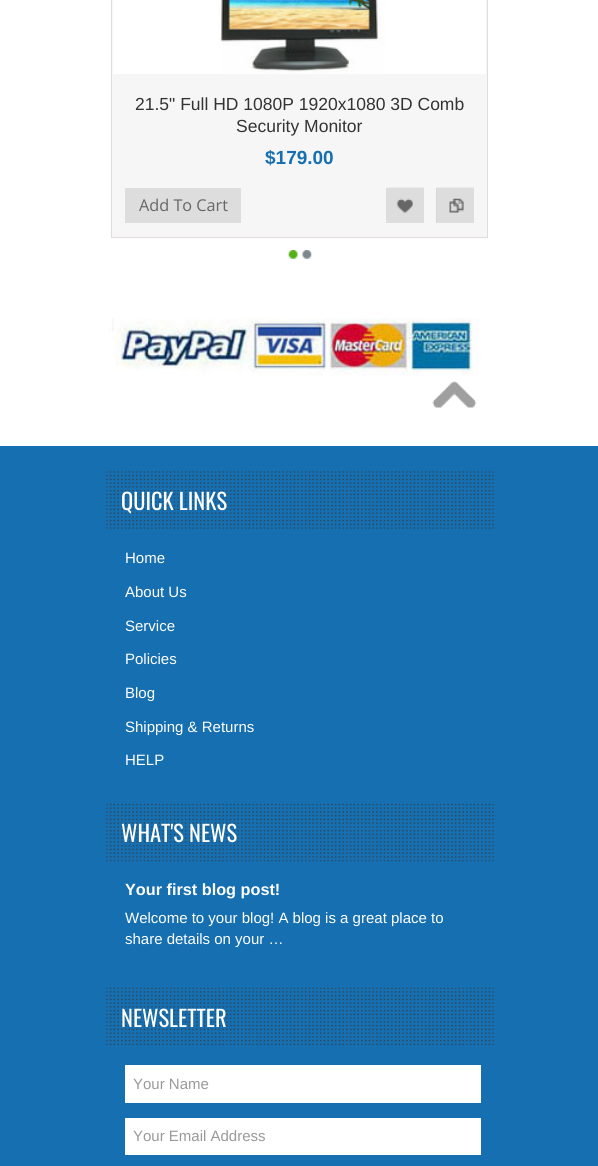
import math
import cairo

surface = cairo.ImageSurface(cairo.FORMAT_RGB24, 598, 1166)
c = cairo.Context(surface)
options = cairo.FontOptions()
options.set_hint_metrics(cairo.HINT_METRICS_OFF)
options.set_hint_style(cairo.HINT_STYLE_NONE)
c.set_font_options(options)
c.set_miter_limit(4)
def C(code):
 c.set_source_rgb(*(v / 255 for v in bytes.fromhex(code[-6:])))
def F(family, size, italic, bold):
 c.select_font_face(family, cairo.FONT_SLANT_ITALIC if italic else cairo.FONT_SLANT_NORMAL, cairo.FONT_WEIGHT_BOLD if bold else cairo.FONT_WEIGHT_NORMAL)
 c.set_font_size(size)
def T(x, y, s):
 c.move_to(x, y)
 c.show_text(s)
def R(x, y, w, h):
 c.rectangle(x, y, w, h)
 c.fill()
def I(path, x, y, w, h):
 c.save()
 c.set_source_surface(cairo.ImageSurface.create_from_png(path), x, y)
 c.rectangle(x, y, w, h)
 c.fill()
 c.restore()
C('ffffff')
c.paint()
C('fcf5f7')
c.rectangle(111.5,-.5,376,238)
c.fill_preserve()
C('dddddd')
c.set_line_width(1)
c.stroke()
C('f6f6f6')
R(113,74,373,162)
C('ffffff')
R(113,0,373,74)
I('1.png',219,0,166,74)
F('Liberation Sans',17.5,0,0)
C('333333')
T(135,110,'21.5" Full HD 1080P 1920x1080 3D Comb')
T(236,132,'Security Monitor')
F('Liberation Sans',19,0,1)
C('166fb0')
T(265,164,'$179.00')
C('dddddd')
R(125,188,116,35)
F('Open Sans',16.25,0,0)
C('666666')
T(139,211,'Add To Cart')
C('dddddd')
R(386,188,38,35)
I('2.png',387,187,37,26)
R(437,188,37,35)
I('3.png',436,187,38,26)
C('d6d6d6')
R(436,188,1,35)
I('4.png',288,250,10,9)
I('5.png',302,250,10,9)
I('7.png',432,381,45,27)
I('6.png',109,318,370,64)
C('166fb0')
R(0,446,598,720)
I('8.png',106,471,388,58)
F('Oswald',22.5,0,0)
C('ffffff')
T(121,510,'QUICK LINKS')
F('Liberation Sans',15,0,0)
T(125,563,'Home')
T(125,597,'About Us')
T(125,631,'Service')
T(125,664,'Policies')
T(125,698,'Blog')
T(125,732,'Shipping & Returns')
T(125,765,'HELP')
I('9.png',106,803,388,59)
F('Oswald',22.5,0,0)
T(121,842,'WHAT\'S NEWS')
F('Liberation Sans',16.25,0,1)
T(125,895,'Your first blog post!')
F('Liberation Sans',15,0,0)
T(125,923,'Welcome to your blog! A blog is a great place to')
T(125,944,'share details on your …')
I('10.png',106,987,388,58)
F('Oswald',22.5,0,0)
T(121,1027,'NEWSLETTER')
R(125,1065,356,38)
F('Liberation Sans',15,0,0)
C('999999')
T(133,1089,'Your Name')
C('ffffff')
R(125,1118,356,37)
C('999999')
T(133,1141,'Your Email Address')
surface.write_to_png('o.png')
